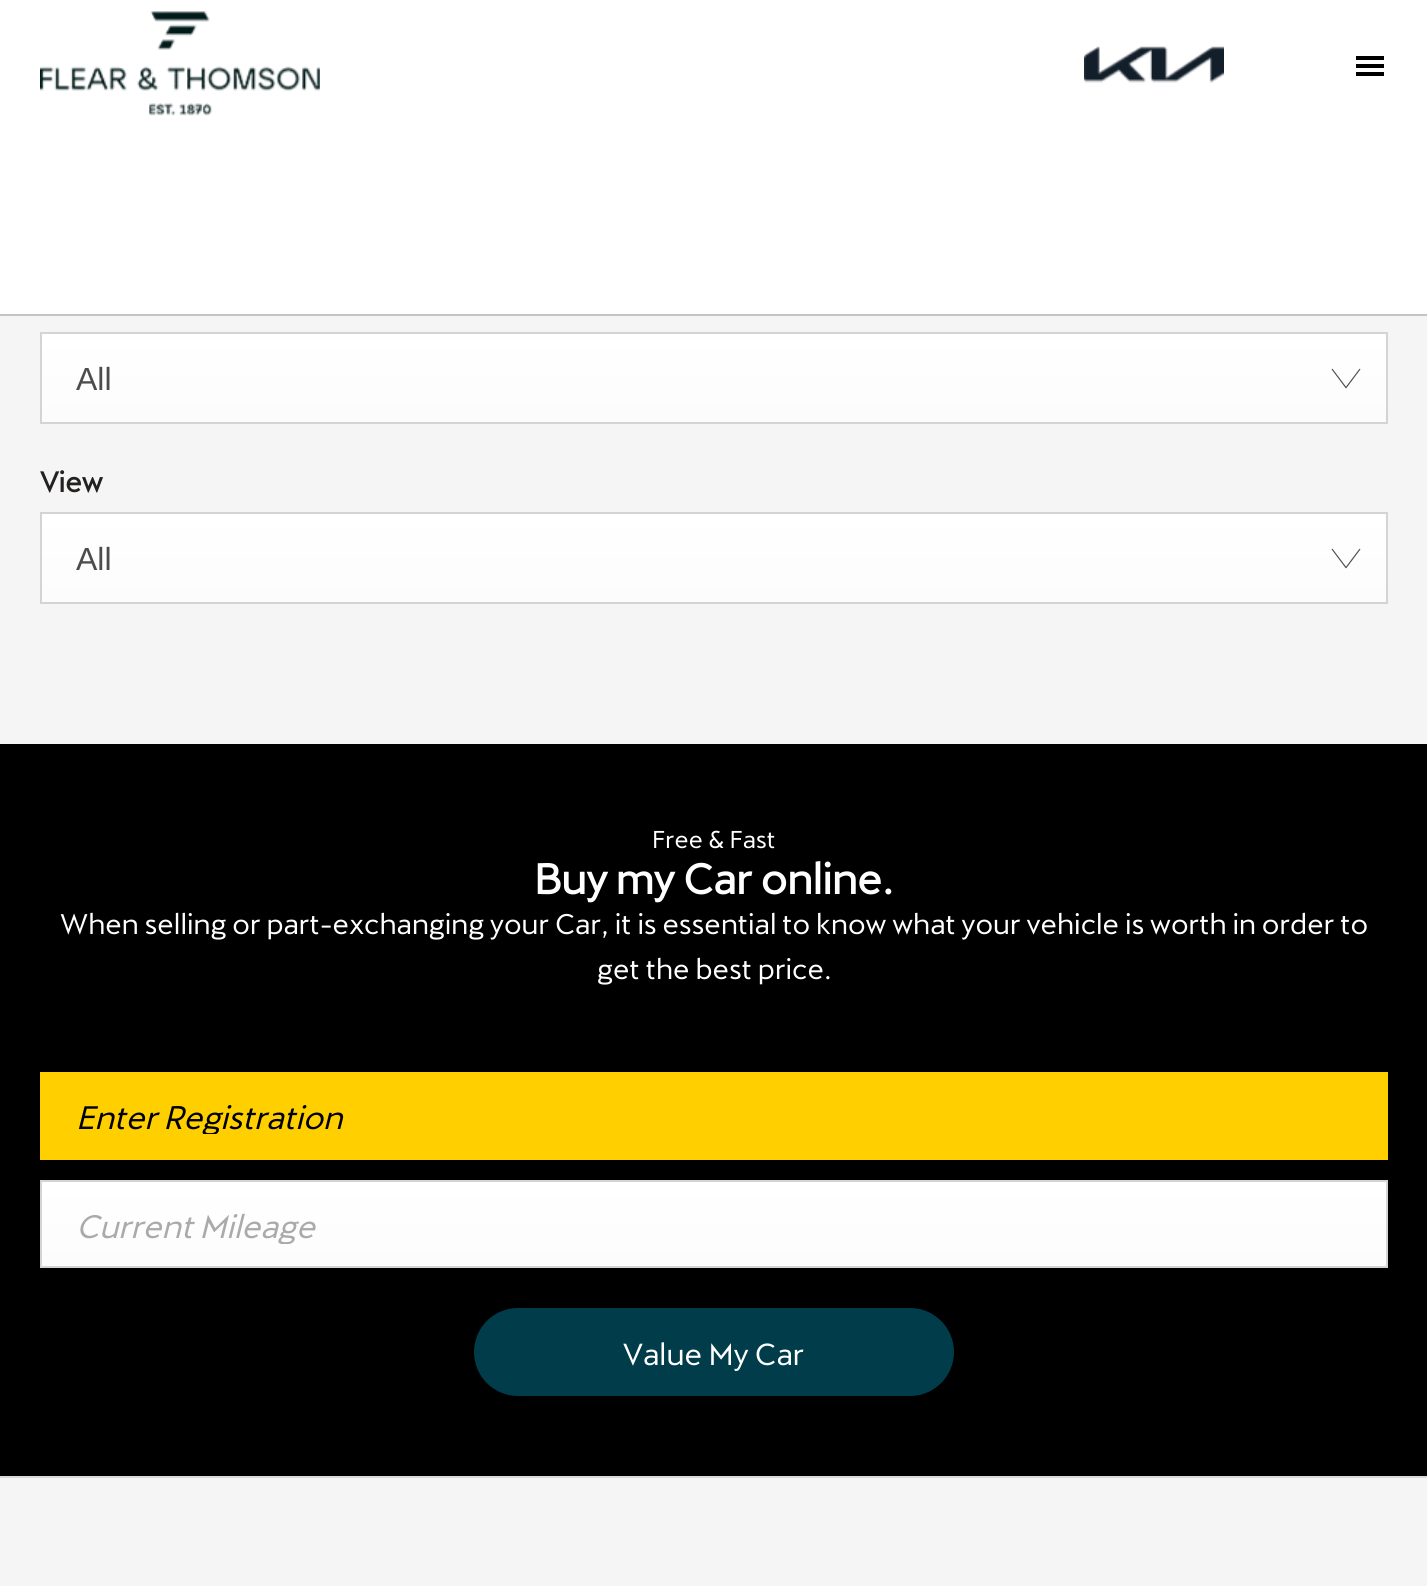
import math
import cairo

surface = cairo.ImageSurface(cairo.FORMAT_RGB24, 1427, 1586)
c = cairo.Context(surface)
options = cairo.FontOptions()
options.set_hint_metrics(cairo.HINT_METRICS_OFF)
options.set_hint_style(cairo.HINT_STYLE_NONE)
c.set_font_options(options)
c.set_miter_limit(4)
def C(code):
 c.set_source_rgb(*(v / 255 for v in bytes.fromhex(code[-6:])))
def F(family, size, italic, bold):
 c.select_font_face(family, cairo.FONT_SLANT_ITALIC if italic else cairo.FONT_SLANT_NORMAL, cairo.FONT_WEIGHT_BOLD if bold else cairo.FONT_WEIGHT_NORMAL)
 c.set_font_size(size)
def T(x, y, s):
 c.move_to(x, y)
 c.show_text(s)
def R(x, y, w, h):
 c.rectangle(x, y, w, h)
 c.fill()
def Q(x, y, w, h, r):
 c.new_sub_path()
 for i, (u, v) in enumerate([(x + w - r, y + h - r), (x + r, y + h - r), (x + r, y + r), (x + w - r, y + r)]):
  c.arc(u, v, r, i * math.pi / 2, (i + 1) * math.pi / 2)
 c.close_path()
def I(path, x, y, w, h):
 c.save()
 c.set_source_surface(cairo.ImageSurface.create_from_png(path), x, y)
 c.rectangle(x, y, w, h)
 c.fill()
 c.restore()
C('f5f5f5')
c.paint()
C('ffffff')
R(0,0,1427,314)
C('c4c4c4')
R(0,314,1427,2)
I('1.png',40,11,280,105)
I('2.png',1084,46,140,37)
C('000000')
R(1356,72,28,4)
R(1356,56,28,4)
R(1356,64,28,4)
gradient = cairo.LinearGradient(714,334,714,422)
gradient.add_color_stop_rgba(0,1,1,1,1)
gradient.add_color_stop_rgba(1,0.988,0.988,0.988,1)
c.set_source(gradient)
R(42,334,1344,88)
c.rectangle(41,333,1346,90)
C('d4d4d4')
c.stroke()
F('Liberation Sans',32,0,0)
C('4c4c4c')
T(76,390,'All')
I('3.png',1331,368,30,21)
F('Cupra',28,0,1)
C('242221')
T(40,492,'View')
gradient = cairo.LinearGradient(714,514,714,602)
gradient.add_color_stop_rgba(0,1,1,1,1)
gradient.add_color_stop_rgba(1,0.988,0.988,0.988,1)
c.set_source(gradient)
R(42,514,1344,88)
c.rectangle(41,513,1346,90)
C('d4d4d4')
c.stroke()
F('Liberation Sans',32,0,0)
C('4c4c4c')
T(76,570,'All')
I('3.png',1331,548,30,21)
C('000000')
R(0,744,1427,732)
F('Cupra',24,0,0)
C('ffffff')
T(652,848,'Free & Fast')
F('Cupra',41.75,0,1)
T(534,894,'Buy my Car online.')
F('Cupra',28,0,0)
T(60,934,'When selling or part-exchanging your Car, it is essential to know what your vehicle is worth in order to')
T(597,979,'get the best price.')
C('ffcf00')
R(40,1072,1348,88)
c.save()
c.rectangle(76,1096,1276,38)
c.clip()
F('Cupra',32,1,0)
C('000000')
T(76,1129,'Enter Registration')
c.restore()
gradient = cairo.LinearGradient(714,1182,714,1266)
gradient.add_color_stop_rgba(0,1,1,1,1)
gradient.add_color_stop_rgba(1,0.988,0.988,0.988,1)
c.set_source(gradient)
R(42,1182,1344,84)
c.rectangle(41,1181,1346,86)
C('d4d4d4')
c.stroke()
c.save()
c.rectangle(76,1206,1276,38)
c.clip()
F('Cupra',32,1,0)
C('aaaaaa')
T(76,1238,'Current Mileage')
c.restore()
C('003c4a')
Q(474,1308,480,88,44)
c.fill()
F('Cupra',30,0,0)
C('ffffff')
T(623,1365,'Value My Car')
C('d9d9d9')
R(0,1476,1427,2)
surface.write_to_png('o.png')
